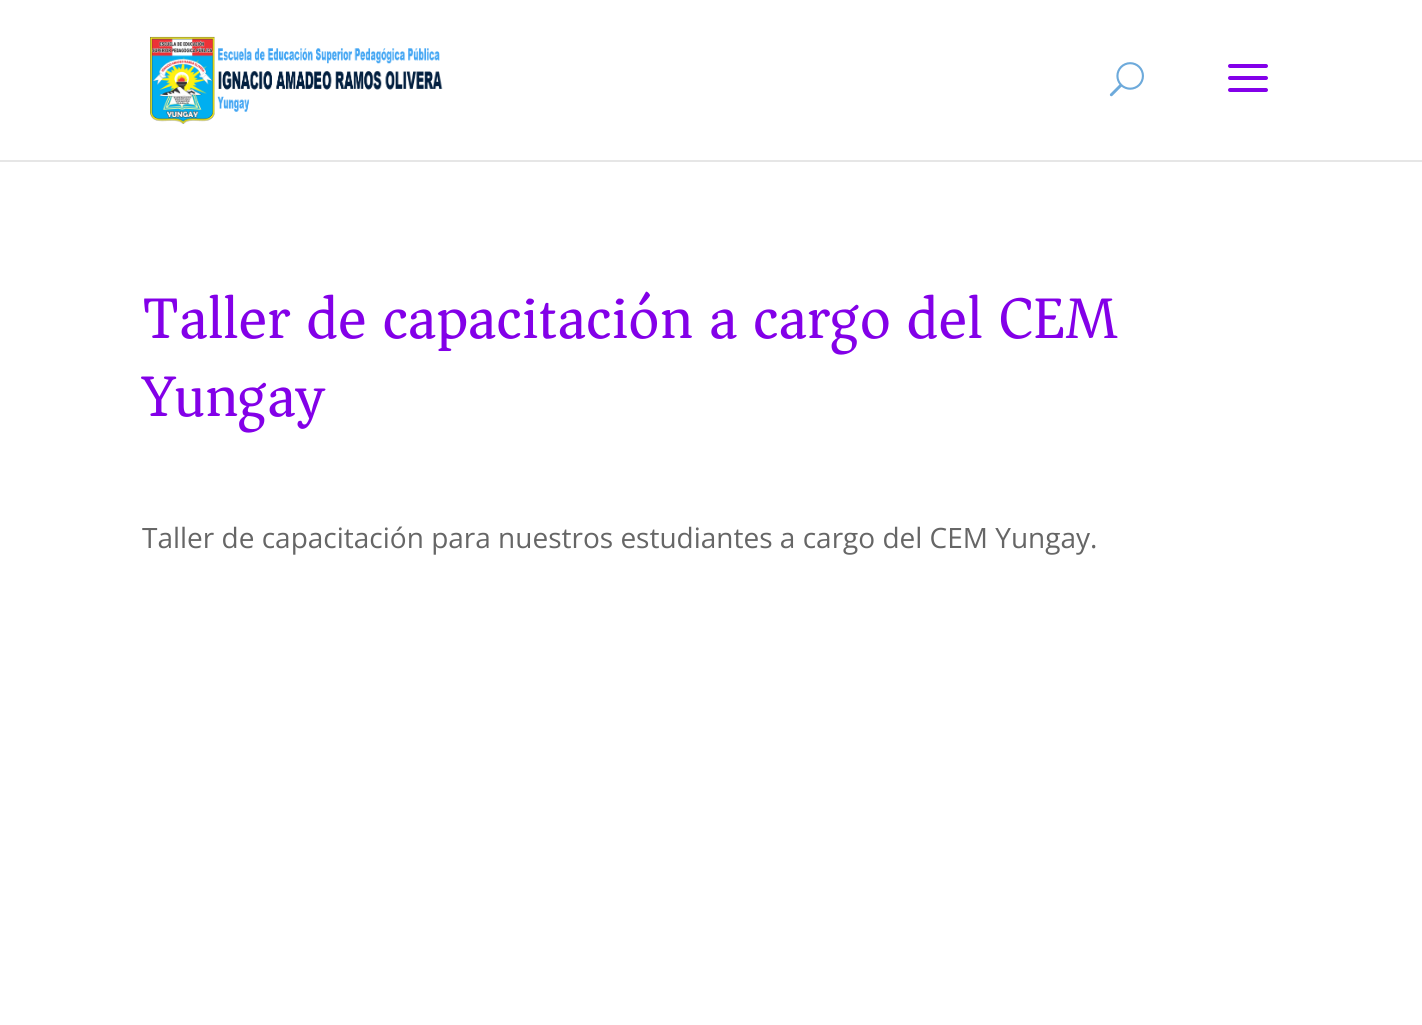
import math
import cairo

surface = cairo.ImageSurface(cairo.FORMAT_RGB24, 1422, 1025)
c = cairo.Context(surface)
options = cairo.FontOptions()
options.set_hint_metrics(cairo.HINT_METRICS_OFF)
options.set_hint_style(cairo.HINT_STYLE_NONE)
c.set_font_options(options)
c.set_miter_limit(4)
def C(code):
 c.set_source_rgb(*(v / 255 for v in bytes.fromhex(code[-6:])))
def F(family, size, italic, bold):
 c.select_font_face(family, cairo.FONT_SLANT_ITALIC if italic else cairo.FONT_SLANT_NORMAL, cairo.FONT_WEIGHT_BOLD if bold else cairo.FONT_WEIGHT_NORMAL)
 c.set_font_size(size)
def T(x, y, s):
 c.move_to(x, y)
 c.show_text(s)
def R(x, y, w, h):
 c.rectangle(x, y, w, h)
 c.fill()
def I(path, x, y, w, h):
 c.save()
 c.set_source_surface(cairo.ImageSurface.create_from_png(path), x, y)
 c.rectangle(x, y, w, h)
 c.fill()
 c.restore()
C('ffffff')
c.paint()
C('e6e6e6')
R(0,160,1422,2)
I('1.png',150,36,293,88)
I('2.png',1109,62,35,35)
I('3.png',1228,64,40,28)
F('Asar',60,0,0)
C('8300e8')
T(142,338,'Taller de capacitación a cargo del CEM')
T(142,416,'Yungay')
F('Open Sans',28,0,0)
C('666666')
T(142,548,'Taller de capacitación para nuestros estudiantes a cargo del CEM Yungay.')
surface.write_to_png('o.png')
